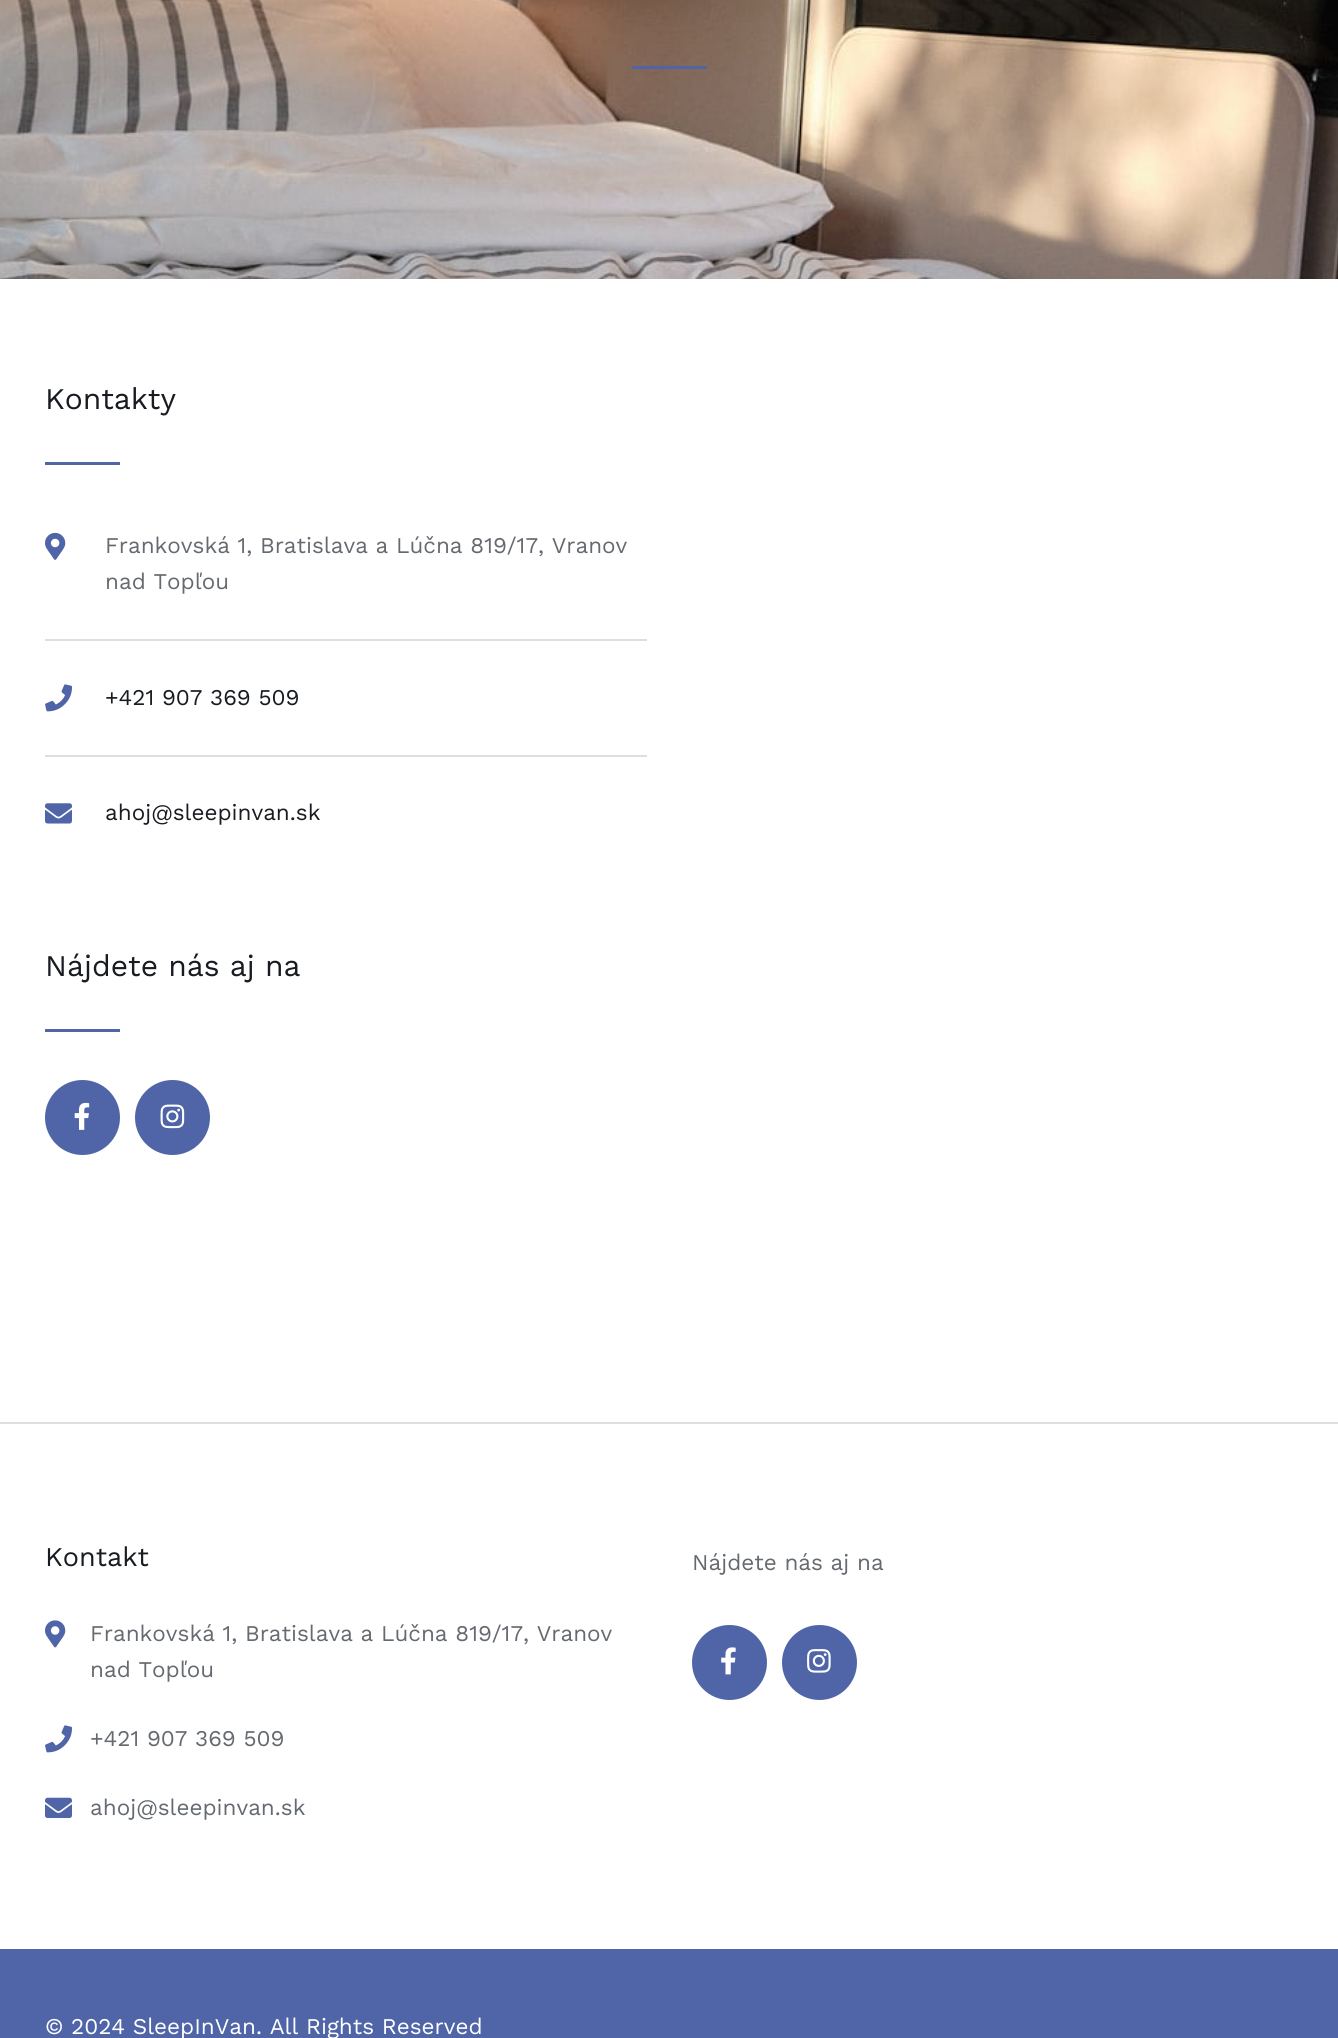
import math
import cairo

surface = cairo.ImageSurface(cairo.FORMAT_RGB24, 1338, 2038)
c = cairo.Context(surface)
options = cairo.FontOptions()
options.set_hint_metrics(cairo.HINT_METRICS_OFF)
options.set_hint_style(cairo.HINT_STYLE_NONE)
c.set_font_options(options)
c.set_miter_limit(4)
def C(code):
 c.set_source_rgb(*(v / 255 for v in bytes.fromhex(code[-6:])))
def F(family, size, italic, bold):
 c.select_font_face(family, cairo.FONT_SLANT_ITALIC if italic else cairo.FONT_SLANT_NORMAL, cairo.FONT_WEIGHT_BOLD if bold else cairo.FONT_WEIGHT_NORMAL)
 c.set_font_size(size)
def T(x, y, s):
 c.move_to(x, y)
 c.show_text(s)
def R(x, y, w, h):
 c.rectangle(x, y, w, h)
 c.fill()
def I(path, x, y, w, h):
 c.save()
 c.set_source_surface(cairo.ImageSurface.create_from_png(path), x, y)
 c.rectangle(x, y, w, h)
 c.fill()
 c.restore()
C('ffffff')
c.paint()
I('1.png',0,0,1338,279)
C('5065a8')
R(632,66,75,3)
F('Work Sans',30,0,0)
C('181b20')
T(45,409,'Kontakty')
C('5065a8')
R(45,462,75,3)
C('dedede')
R(45,639,602,2)
I('2.png',45,532,21,28)
F('Work Sans',22.5,0,0)
C('656a70')
T(105,553,'Frankovská 1, Bratislava a Lúčna 819/17, Vranov')
T(105,589,'nad Topľou')
C('dedede')
R(45,755,602,2)
I('3.png',45,684,28,28)
C('181b20')
T(105,705,'+421 907 369 509')
I('4.png',45,803,27,21)
T(105,820,'ahoj@sleepinvan.sk')
F('Work Sans',30,0,0)
T(45,976,'Nájdete nás aj na')
C('5065a8')
R(45,1029,75,3)
c.new_path()
c.arc(82.5,1117.5,37.5,0,2 * math.pi)
c.fill()
I('5.png',74,1102,16,28)
c.arc(172.5,1117.5,37.5,0,2 * math.pi)
c.fill()
I('6.png',160,1104,25,25)
C('dedede')
R(0,1422,1338,2)
F('Work Sans',27,0,0)
C('181b20')
T(45,1566,'Kontakt')
I('7.png',45,1620,21,28)
F('Work Sans',22.5,0,0)
C('656a70')
T(90,1641,'Frankovská 1, Bratislava a Lúčna 819/17, Vranov')
T(90,1677,'nad Topľou')
I('3.png',45,1725,28,28)
T(90,1746,'+421 907 369 509')
I('8.png',45,1797,27,21)
T(90,1815,'ahoj@sleepinvan.sk')
T(692,1570,'Nájdete nás aj na')
C('5065a8')
c.new_path()
c.arc(729.5,1662.5,37.5,0,2 * math.pi)
c.fill()
I('9.png',721,1647,15,28)
c.arc(819.5,1662.5,37.5,0,2 * math.pi)
c.fill()
I('10.png',807,1649,24,24)
R(0,1949,1338,89)
C('ffffff')
T(45,2034,'© 2024 SleepInVan. All Rights Reserved')
surface.write_to_png('o.png')
